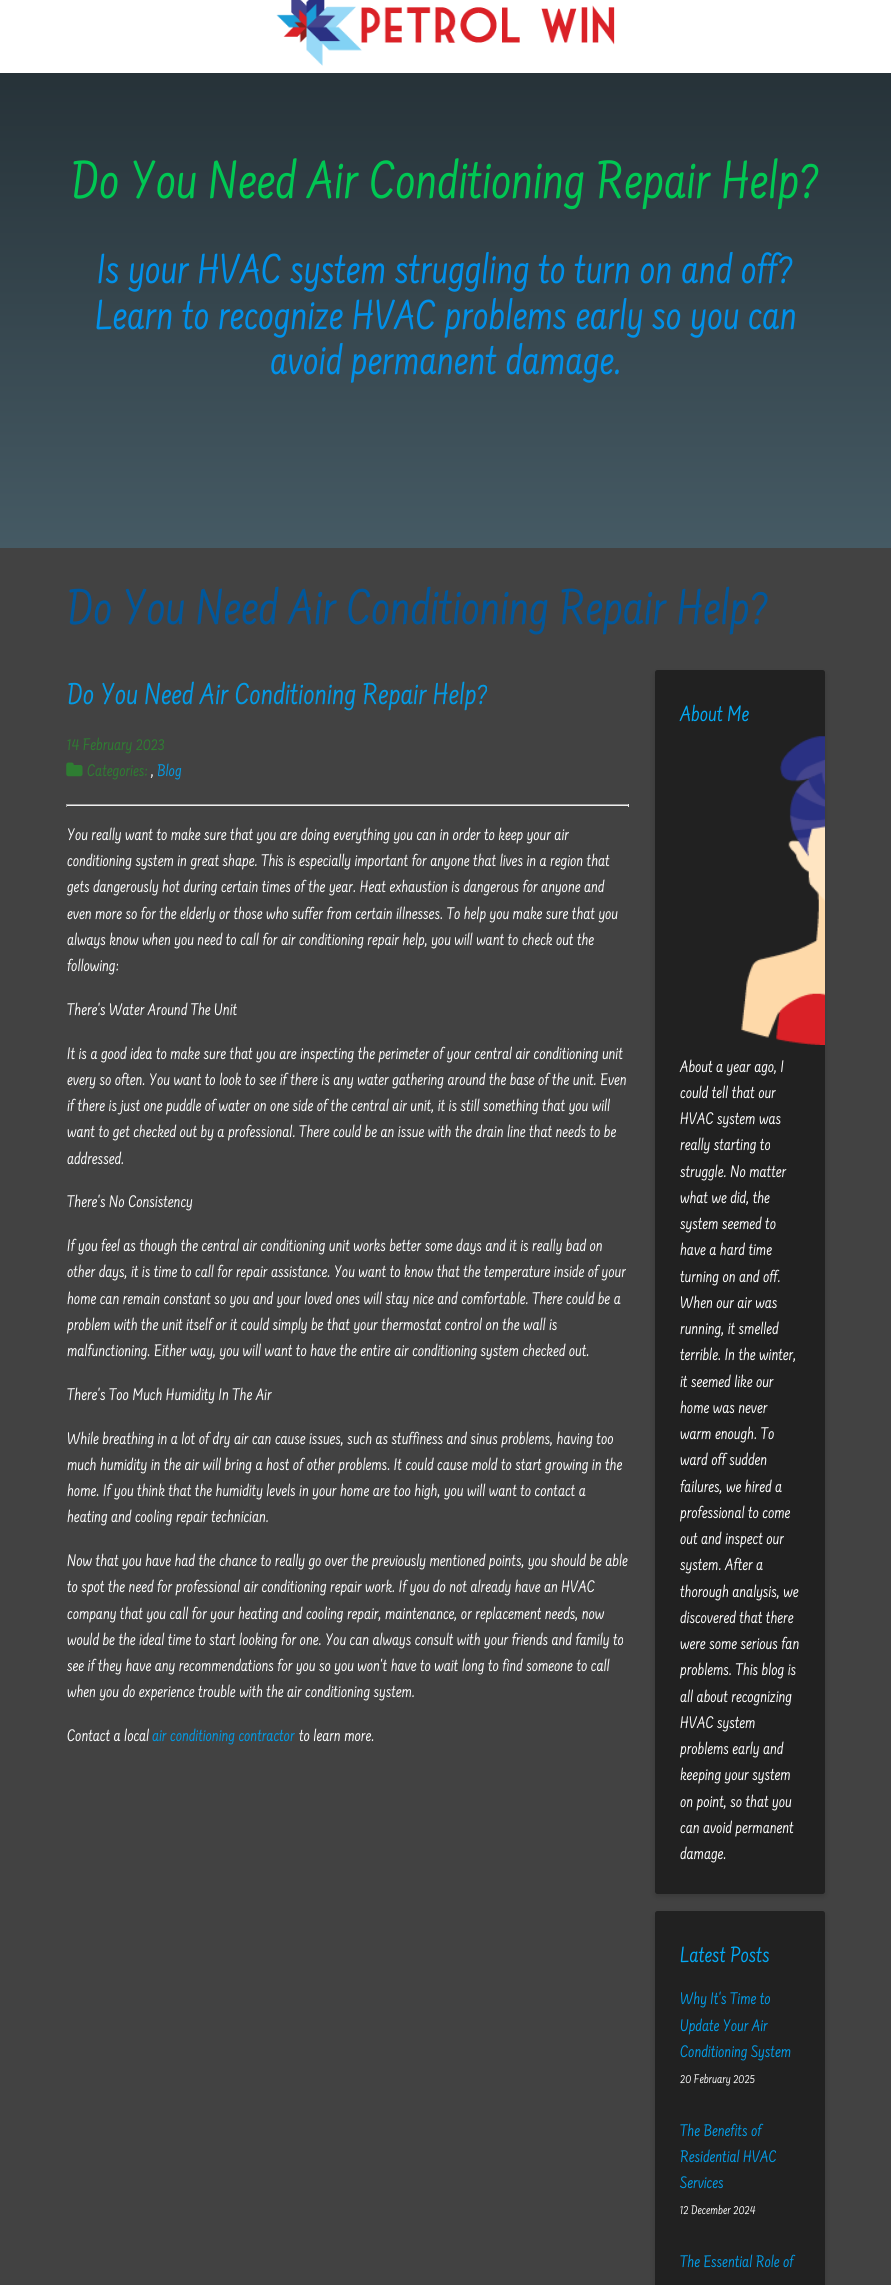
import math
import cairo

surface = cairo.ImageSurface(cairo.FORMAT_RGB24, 891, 2285)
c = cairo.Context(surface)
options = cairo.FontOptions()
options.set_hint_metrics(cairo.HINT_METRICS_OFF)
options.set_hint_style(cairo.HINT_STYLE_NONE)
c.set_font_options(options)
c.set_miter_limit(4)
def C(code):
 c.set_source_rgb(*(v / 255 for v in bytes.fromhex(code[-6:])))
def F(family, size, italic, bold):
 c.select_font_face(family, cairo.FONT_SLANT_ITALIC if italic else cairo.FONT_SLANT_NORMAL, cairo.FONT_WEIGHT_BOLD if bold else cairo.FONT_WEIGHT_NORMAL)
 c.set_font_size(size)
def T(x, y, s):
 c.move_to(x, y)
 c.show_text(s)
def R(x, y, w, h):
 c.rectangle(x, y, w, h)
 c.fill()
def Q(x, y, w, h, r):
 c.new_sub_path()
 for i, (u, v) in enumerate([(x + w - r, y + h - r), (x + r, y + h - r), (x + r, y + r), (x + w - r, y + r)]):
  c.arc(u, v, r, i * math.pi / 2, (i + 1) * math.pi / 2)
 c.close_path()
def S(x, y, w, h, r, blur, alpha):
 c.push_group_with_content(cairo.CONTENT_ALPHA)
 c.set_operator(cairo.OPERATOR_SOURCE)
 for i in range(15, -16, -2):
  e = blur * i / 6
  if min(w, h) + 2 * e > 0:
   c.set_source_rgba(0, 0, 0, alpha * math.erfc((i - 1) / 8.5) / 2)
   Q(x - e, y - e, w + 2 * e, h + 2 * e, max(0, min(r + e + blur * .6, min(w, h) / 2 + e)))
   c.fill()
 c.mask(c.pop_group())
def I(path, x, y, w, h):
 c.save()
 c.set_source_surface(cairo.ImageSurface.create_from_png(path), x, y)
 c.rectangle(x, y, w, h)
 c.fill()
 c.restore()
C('ffffff')
c.paint()
I('1.png',276,0,339,66)
gradient = cairo.LinearGradient(446,72,446,548)
gradient.add_color_stop_rgba(0,0.149,0.196,0.22,1)
gradient.add_color_stop_rgba(1,0.271,0.353,0.392,1)
c.set_source(gradient)
R(0,73,891,475)
F('Farsan',56,0,0)
C('00c853')
T(71,198,'Do You Need Air Conditioning Repair Help?')
F('Farsan',43.75,0,0)
C('0091ea')
T(97,283,'Is your HVAC system struggling to turn on and off?')
T(95,329,'Learn to recognize HVAC problems early so you can')
T(270,374,'avoid permanent damage.')
C('424242')
R(0,548,891,1737)
F('Farsan',52.5,0,0)
C('01579b')
T(67,624,'Do You Need Air Conditioning Repair Help?')
F('Farsan',31.5,0,0)
C('039be5')
T(67,704,'Do You Need Air Conditioning Repair Help?')
F('Farsan',17.5,0,0)
C('2e7d32')
T(67,750,'14 February 2023')
I('2.png',66,762,17,15)
T(87,776,'Categories:')
C('039be5')
T(157,776,'Blog')
C('ffffff')
T(151,776,',')
C('9f9f9f')
R(66,804,563,1)
C('eeeeee')
R(628,804,1,3)
R(66,805,563,1)
C('9f9f9f')
R(66,804,1,3)
C('ffffff')
T(67,840,'You really want to make sure that you are doing everything you can in order to keep your air')
T(67,866,'conditioning system in great shape. This is especially important for anyone that lives in a region that')
T(67,892,'gets dangerously hot during certain times of the year. Heat exhaustion is dangerous for anyone and')
T(67,919,'even more so for the elderly or those who suffer from certain illnesses. To help you make sure that you')
T(67,945,'always know when you need to call for air conditioning repair help, you will want to check out the')
T(67,971,'following:')
T(67,1015,'There\'s Water Around The Unit')
T(67,1059,'It is a good idea to make sure that you are inspecting the perimeter of your central air conditioning unit')
T(67,1085,'every so often. You want to look to see if there is any water gathering around the base of the unit. Even')
T(67,1111,'if there is just one puddle of water on one side of the central air unit, it is still something that you will')
T(67,1137,'want to get checked out by a professional. There could be an issue with the drain line that needs to be')
T(67,1164,'addressed.')
T(67,1207,'There\'s No Consistency')
T(67,1251,'If you feel as though the central air conditioning unit works better some days and it is really bad on')
T(67,1277,'other days, it is time to call for repair assistance. You want to know that the temperature inside of your')
T(67,1304,'home can remain constant so you and your loved ones will stay nice and comfortable. There could be a')
T(67,1330,'problem with the unit itself or it could simply be that your thermostat control on the wall is')
T(67,1356,'malfunctioning. Either way, you will want to have the entire air conditioning system checked out.')
T(67,1400,'There\'s Too Much Humidity In The Air')
T(67,1444,'While breathing in a lot of dry air can cause issues, such as stuffiness and sinus problems, having too')
T(67,1470,'much humidity in the air will bring a host of other problems. It could cause mold to start growing in the')
T(67,1496,'home. If you think that the humidity levels in your home are too high, you will want to contact a')
T(67,1522,'heating and cooling repair technician.')
T(67,1566,'Now that you have had the chance to really go over the previously mentioned points, you should be able')
T(67,1592,'to spot the need for professional air conditioning repair work. If you do not already have an HVAC')
T(67,1619,'company that you call for your heating and cooling repair, maintenance, or replacement needs, now')
T(67,1645,'would be the ideal time to start looking for one. You can always consult with your friends and family to')
T(67,1671,'see if they have any recommendations for you so you won\'t have to wait long to find someone to call')
T(67,1697,'when you do experience trouble with the air conditioning system.')
T(67,1741,'Contact a local')
C('039be5')
T(152,1741,'air conditioning contractor')
C('ffffff')
T(299,1741,'to learn more.')
C('000000')
S(655,673,170,1223,2.5,3,.16)
C('212121')
Q(655,670,170,1224,2.5)
c.fill()
F('Farsan',23,0,0)
C('03a9f4')
T(680,721,'About Me')
I('3.png',741,736,84,309)
F('Farsan',17.5,0,0)
C('ffffff')
T(680,1072,'About a year ago, I')
T(680,1098,'could tell that our')
T(680,1124,'HVAC system was')
T(680,1150,'really starting to')
T(680,1177,'struggle. No matter')
T(680,1203,'what we did, the')
T(680,1229,'system seemed to')
T(680,1255,'have a hard time')
T(680,1282,'turning on and off.')
T(680,1308,'When our air was')
T(680,1334,'running, it smelled')
T(680,1360,'terrible. In the winter,')
T(680,1387,'it seemed like our')
T(680,1413,'home was never')
T(680,1439,'warm enough. To')
T(680,1465,'ward off sudden')
T(680,1492,'failures, we hired a')
T(680,1518,'professional to come')
T(680,1544,'out and inspect our')
T(680,1570,'system. After a')
T(680,1597,'thorough analysis, we')
T(680,1623,'discovered that there')
T(680,1649,'were some serious fan')
T(680,1675,'problems. This blog is')
T(680,1702,'all about recognizing')
T(680,1728,'HVAC system')
T(680,1754,'problems early and')
T(680,1780,'keeping your system')
T(680,1807,'on point, so that you')
T(680,1833,'can avoid permanent')
T(680,1859,'damage.')
C('000000')
S(655,1914,170,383,2.5,3,.16)
C('212121')
Q(655,1911,170,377,2.5)
c.fill()
F('Farsan',23,0,0)
C('03a9f4')
T(680,1962,'Latest Posts')
F('Farsan',17.5,0,0)
C('039be5')
T(680,2004,'Why It\'s Time to')
T(680,2031,'Update Your Air')
T(680,2057,'Conditioning System')
F('Farsan',13,0,0)
C('ffffff')
T(680,2083,'20 February 2025')
F('Farsan',17.5,0,0)
C('039be5')
T(680,2136,'The Benefits of')
T(680,2162,'Residential HVAC')
T(680,2188,'Services')
F('Farsan',13,0,0)
C('ffffff')
T(680,2214,'12 December 2024')
F('Farsan',17.5,0,0)
C('039be5')
T(680,2267,'The Essential Role of')
surface.write_to_png('o.png')
